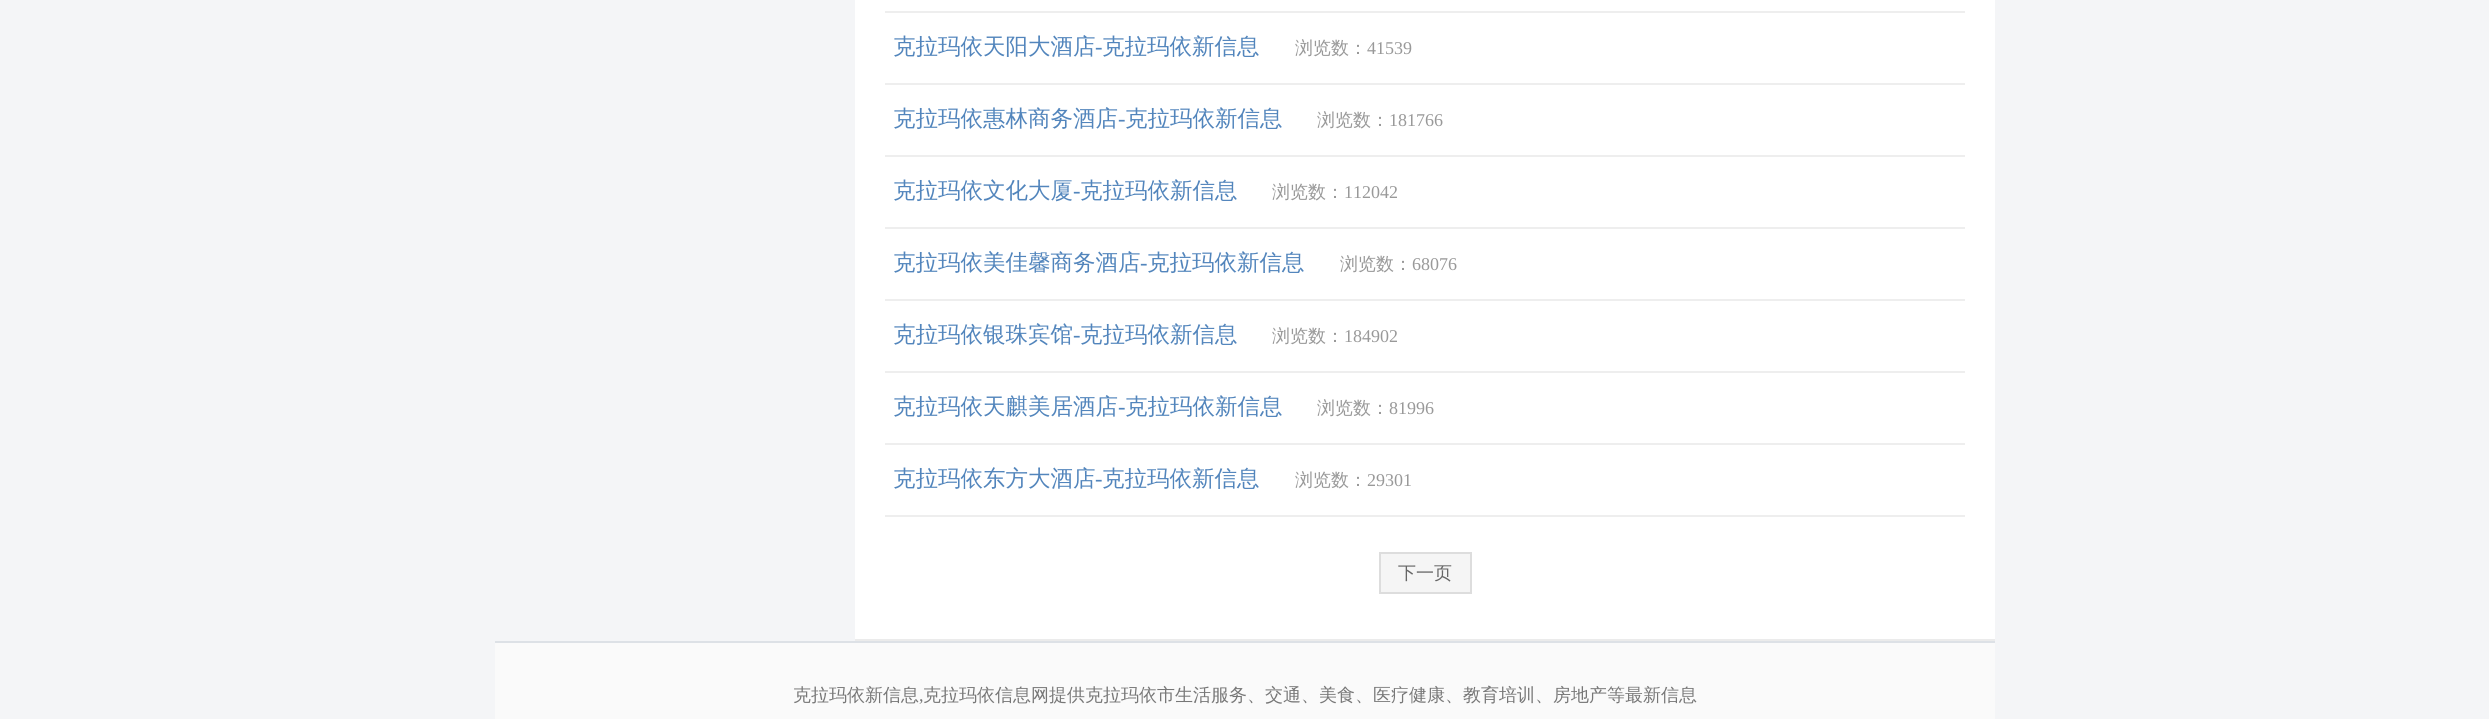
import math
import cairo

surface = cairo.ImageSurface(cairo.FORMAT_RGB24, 2489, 719)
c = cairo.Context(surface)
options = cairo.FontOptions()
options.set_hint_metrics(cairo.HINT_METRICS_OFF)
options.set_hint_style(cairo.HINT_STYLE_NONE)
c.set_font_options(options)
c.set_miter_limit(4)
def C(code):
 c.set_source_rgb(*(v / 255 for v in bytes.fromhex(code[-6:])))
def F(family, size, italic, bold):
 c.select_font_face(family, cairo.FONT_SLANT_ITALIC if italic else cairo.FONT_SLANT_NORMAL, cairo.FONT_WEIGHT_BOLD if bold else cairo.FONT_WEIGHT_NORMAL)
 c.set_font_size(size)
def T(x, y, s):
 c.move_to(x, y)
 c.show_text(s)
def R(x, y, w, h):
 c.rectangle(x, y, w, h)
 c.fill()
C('f4f5f7')
c.paint()
C('ffffff')
R(855,0,1140,639)
C('ebebeb')
R(855,639,1140,2)
C('eeeeee')
R(885,11,1080,2)
R(885,83,1080,2)
F('WenQuanYi Zen Hei Medium',22.5,0,0)
C('5285bc')
T(893,54,'克拉玛依天阳大酒店')
F('Liberation Serif',22.5,0,0)
T(1095,54,'-')
F('WenQuanYi Zen Hei Medium',22.5,0,0)
T(1102,54,'克拉玛依新信息')
F('WenQuanYi Zen Hei Medium',18,0,0)
C('999999')
T(1295,54,'浏览数：')
F('Liberation Serif',18,0,0)
T(1367,54,'41539')
C('eeeeee')
R(885,155,1080,2)
F('WenQuanYi Zen Hei Medium',22.5,0,0)
C('5285bc')
T(893,126,'克拉玛依惠林商务酒店')
F('Liberation Serif',22.5,0,0)
T(1118,126,'-')
F('WenQuanYi Zen Hei Medium',22.5,0,0)
T(1125,126,'克拉玛依新信息')
F('WenQuanYi Zen Hei Medium',18,0,0)
C('999999')
T(1317,126,'浏览数：')
F('Liberation Serif',18,0,0)
T(1389,126,'181766')
C('eeeeee')
R(885,227,1080,2)
F('WenQuanYi Zen Hei Medium',22.5,0,0)
C('5285bc')
T(893,198,'克拉玛依文化大厦')
F('Liberation Serif',22.5,0,0)
T(1073,198,'-')
F('WenQuanYi Zen Hei Medium',22.5,0,0)
T(1080,198,'克拉玛依新信息')
F('WenQuanYi Zen Hei Medium',18,0,0)
C('999999')
T(1272,198,'浏览数：')
F('Liberation Serif',18,0,0)
T(1344,198,'112042')
C('eeeeee')
R(885,299,1080,2)
F('WenQuanYi Zen Hei Medium',22.5,0,0)
C('5285bc')
T(893,270,'克拉玛依美佳馨商务酒店')
F('Liberation Serif',22.5,0,0)
T(1140,270,'-')
F('WenQuanYi Zen Hei Medium',22.5,0,0)
T(1147,270,'克拉玛依新信息')
F('WenQuanYi Zen Hei Medium',18,0,0)
C('999999')
T(1340,270,'浏览数：')
F('Liberation Serif',18,0,0)
T(1412,270,'68076')
C('eeeeee')
R(885,371,1080,2)
F('WenQuanYi Zen Hei Medium',22.5,0,0)
C('5285bc')
T(893,342,'克拉玛依银珠宾馆')
F('Liberation Serif',22.5,0,0)
T(1073,342,'-')
F('WenQuanYi Zen Hei Medium',22.5,0,0)
T(1080,342,'克拉玛依新信息')
F('WenQuanYi Zen Hei Medium',18,0,0)
C('999999')
T(1272,342,'浏览数：')
F('Liberation Serif',18,0,0)
T(1344,342,'184902')
C('eeeeee')
R(885,443,1080,2)
F('WenQuanYi Zen Hei Medium',22.5,0,0)
C('5285bc')
T(893,414,'克拉玛依天麒美居酒店')
F('Liberation Serif',22.5,0,0)
T(1118,414,'-')
F('WenQuanYi Zen Hei Medium',22.5,0,0)
T(1125,414,'克拉玛依新信息')
F('WenQuanYi Zen Hei Medium',18,0,0)
C('999999')
T(1317,414,'浏览数：')
F('Liberation Serif',18,0,0)
T(1389,414,'81996')
C('eeeeee')
R(885,515,1080,2)
F('WenQuanYi Zen Hei Medium',22.5,0,0)
C('5285bc')
T(893,486,'克拉玛依东方大酒店')
F('Liberation Serif',22.5,0,0)
T(1095,486,'-')
F('WenQuanYi Zen Hei Medium',22.5,0,0)
T(1102,486,'克拉玛依新信息')
F('WenQuanYi Zen Hei Medium',18,0,0)
C('999999')
T(1295,486,'浏览数：')
F('Liberation Serif',18,0,0)
T(1367,486,'29301')
C('f5f5f5')
c.rectangle(1380,553,91,40)
c.fill_preserve()
C('dddddd')
c.stroke()
F('WenQuanYi Zen Hei Medium',18,0,0)
C('666666')
T(1398,579,'下一页')
C('fafafa')
R(495,643,1500,76)
C('dde1e6')
R(495,641,1500,2)
C('777777')
T(793,701,'克拉玛依新信息')
F('Liberation Serif',18,0,0)
T(919,701,',')
F('WenQuanYi Zen Hei Medium',18,0,0)
T(923,701,'克拉玛依信息网提供克拉玛依市生活服务、交通、美食、医疗健康、教育培训、房地产等最新信息')
surface.write_to_png('o.png')
